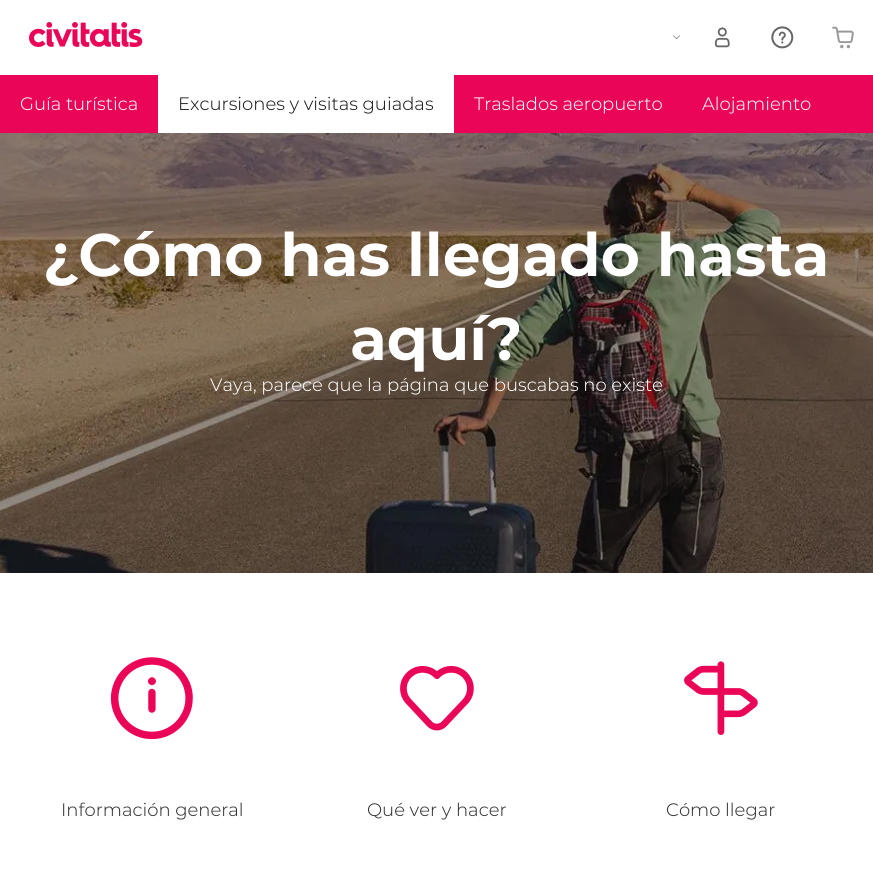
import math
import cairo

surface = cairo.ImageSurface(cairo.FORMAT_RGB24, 873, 889)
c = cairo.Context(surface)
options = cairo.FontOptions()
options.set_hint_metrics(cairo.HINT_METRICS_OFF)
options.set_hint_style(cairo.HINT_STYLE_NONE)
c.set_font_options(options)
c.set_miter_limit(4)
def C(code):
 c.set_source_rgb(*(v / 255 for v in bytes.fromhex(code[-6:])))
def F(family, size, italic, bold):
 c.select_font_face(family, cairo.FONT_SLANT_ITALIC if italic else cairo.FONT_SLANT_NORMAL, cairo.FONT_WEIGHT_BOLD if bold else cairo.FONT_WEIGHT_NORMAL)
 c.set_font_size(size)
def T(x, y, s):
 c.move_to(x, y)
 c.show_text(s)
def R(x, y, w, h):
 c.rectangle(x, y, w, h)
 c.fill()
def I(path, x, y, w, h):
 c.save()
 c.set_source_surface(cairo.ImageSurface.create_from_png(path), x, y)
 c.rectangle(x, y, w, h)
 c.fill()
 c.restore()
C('ffffff')
c.paint()
I('1.png',29,22,114,25)
I('2.png',673,35,7,5)
I('3.png',714,27,16,21)
I('4.png',771,26,23,23)
I('5.png',832,26,22,23)
C('ea0558')
R(0,75,873,58)
F('Montserrat Light',18,0,0)
C('ffffff')
T(20,110,'Guía turística')
R(158,75,296,58)
C('1c1a1a')
T(178,110,'Excursiones y visitas guiadas')
C('ffffff')
T(474,110,'Traslados aeropuerto')
T(702,110,'Alojamiento')
I('6.png',0,133,873,440)
F('Montserrat',60,0,1)
T(43,276,'¿Cómo has llegado hasta')
T(350,360,'aquí?')
F('Montserrat Light',18,0,0)
T(210,391,'Vaya, parece que la página que buscabas no existe')
I('7.png',110,657,83,83)
C('333333')
T(61,816,'Información general')
I('8.png',400,666,74,65)
T(367,816,'Qué ver y hacer')
I('9.png',684,661,74,74)
T(666,816,'Cómo llegar')
surface.write_to_png('o.png')
